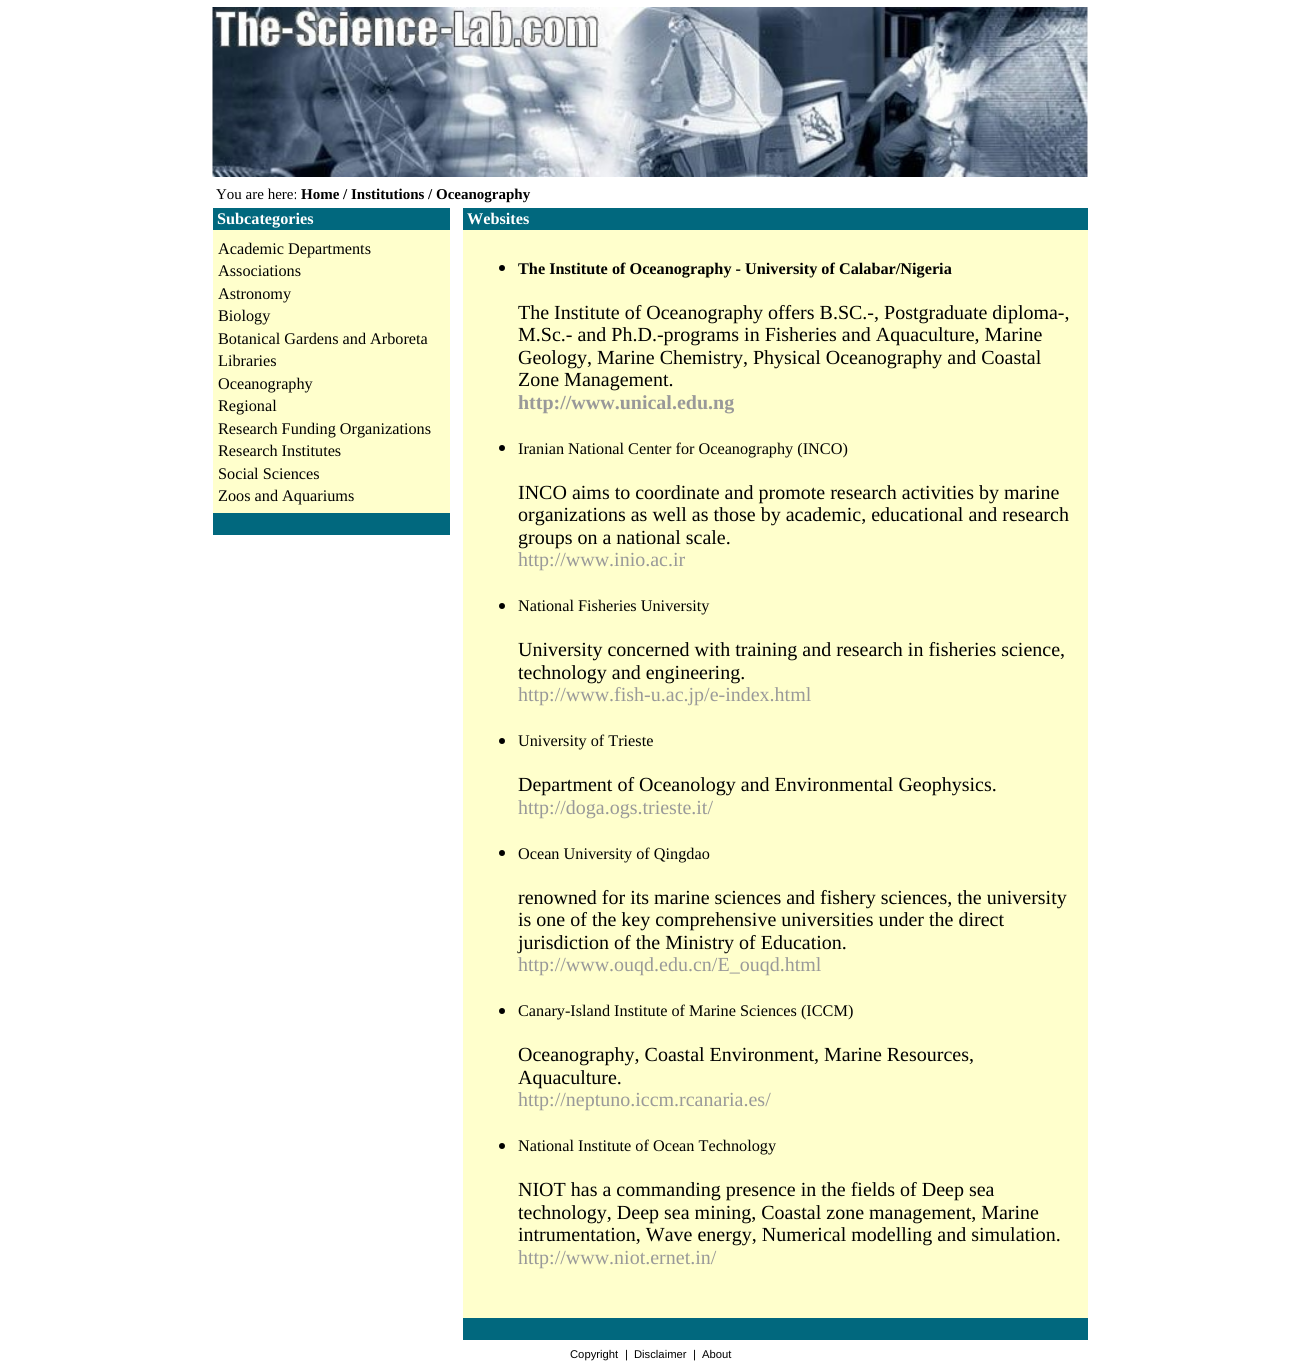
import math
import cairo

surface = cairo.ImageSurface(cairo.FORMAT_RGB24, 1298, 1368)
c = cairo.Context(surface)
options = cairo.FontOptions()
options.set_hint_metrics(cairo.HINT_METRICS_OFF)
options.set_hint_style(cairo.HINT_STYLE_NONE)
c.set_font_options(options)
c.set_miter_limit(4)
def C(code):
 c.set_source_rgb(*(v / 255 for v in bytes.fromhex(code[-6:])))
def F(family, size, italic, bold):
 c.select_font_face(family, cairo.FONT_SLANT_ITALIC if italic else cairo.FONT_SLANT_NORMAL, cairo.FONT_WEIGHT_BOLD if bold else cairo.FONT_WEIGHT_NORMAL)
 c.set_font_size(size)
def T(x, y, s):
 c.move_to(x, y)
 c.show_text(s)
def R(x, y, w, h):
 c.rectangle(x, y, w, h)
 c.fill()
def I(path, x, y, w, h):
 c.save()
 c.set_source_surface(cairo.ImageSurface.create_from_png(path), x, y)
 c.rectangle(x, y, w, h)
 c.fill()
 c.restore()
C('ffffff')
c.paint()
I('1.png',212,7,876,170)
F('Liberation Serif',15,0,0)
C('000000')
T(216,199,'You are here:')
F('Liberation Serif',15,0,1)
T(301,199,'Home / Institutions / Oceanography')
C('01687e')
R(213,208,237,22)
F('Liberation Serif',16.25,0,1)
C('ffffff')
T(217,224,'Subcategories')
C('ffffcc')
R(213,230,237,283)
F('Liberation Serif',16.25,0,0)
C('000000')
T(218,254,'Academic Departments')
T(218,276,'Associations')
T(218,299,'Astronomy')
T(218,321,'Biology')
T(218,344,'Botanical Gardens and Arboreta')
T(218,366,'Libraries')
T(218,389,'Oceanography')
T(218,411,'Regional')
T(218,434,'Research Funding Organizations')
T(218,456,'Research Institutes')
T(218,479,'Social Sciences')
T(218,501,'Zoos and Aquariums')
C('01687e')
R(213,513,237,22)
R(463,208,625,22)
F('Liberation Serif',16.25,0,1)
C('ffffff')
T(467,224,'Websites')
C('ffffcc')
R(463,230,625,1088)
C('000000')
c.new_path()
c.arc(502,268,3,0,2 * math.pi)
c.fill()
T(518,274,'The Institute of Oceanography - University of Calabar/Nigeria')
F('Liberation Serif',20,0,0)
T(518,319,'The Institute of Oceanography offers B.SC.-, Postgraduate diploma-,')
T(518,341,'M.Sc.- and Ph.D.-programs in Fisheries and Aquaculture, Marine')
T(518,364,'Geology, Marine Chemistry, Physical Oceanography and Coastal')
T(518,386,'Zone Management.')
F('Liberation Serif',20,0,1)
C('999999')
T(518,409,'http://www.unical.edu.ng')
C('000000')
c.new_path()
c.arc(502,448,3,0,2 * math.pi)
c.fill()
F('Liberation Serif',16.25,0,0)
T(518,454,'Iranian National Center for Oceanography (INCO)')
F('Liberation Serif',20,0,0)
T(518,499,'INCO aims to coordinate and promote research activities by marine')
T(518,521,'organizations as well as those by academic, educational and research')
T(518,544,'groups on a national scale.')
C('999999')
T(518,566,'http://www.inio.ac.ir')
C('000000')
c.new_path()
c.arc(502,606,3,0,2 * math.pi)
c.fill()
F('Liberation Serif',16.25,0,0)
T(518,611,'National Fisheries University')
F('Liberation Serif',20,0,0)
T(518,656,'University concerned with training and research in fisheries science,')
T(518,679,'technology and engineering.')
C('999999')
T(518,701,'http://www.fish-u.ac.jp/e-index.html')
C('000000')
c.new_path()
c.arc(502,741,3,0,2 * math.pi)
c.fill()
F('Liberation Serif',16.25,0,0)
T(518,746,'University of Trieste')
F('Liberation Serif',20,0,0)
T(518,791,'Department of Oceanology and Environmental Geophysics.')
C('999999')
T(518,814,'http://doga.ogs.trieste.it/')
C('000000')
c.new_path()
c.arc(502,853,3,0,2 * math.pi)
c.fill()
F('Liberation Serif',16.25,0,0)
T(518,859,'Ocean University of Qingdao')
F('Liberation Serif',20,0,0)
T(518,904,'renowned for its marine sciences and fishery sciences, the university')
T(518,926,'is one of the key comprehensive universities under the direct')
T(518,949,'jurisdiction of the Ministry of Education.')
C('999999')
T(518,971,'http://www.ouqd.edu.cn/E_ouqd.html')
C('000000')
c.new_path()
c.arc(502,1011,3,0,2 * math.pi)
c.fill()
F('Liberation Serif',16.25,0,0)
T(518,1016,'Canary-Island Institute of Marine Sciences (ICCM)')
F('Liberation Serif',20,0,0)
T(518,1061,'Oceanography, Coastal Environment, Marine Resources,')
T(518,1084,'Aquaculture.')
C('999999')
T(518,1106,'http://neptuno.iccm.rcanaria.es/')
C('000000')
c.new_path()
c.arc(502,1146,3,0,2 * math.pi)
c.fill()
F('Liberation Serif',16.25,0,0)
T(518,1151,'National Institute of Ocean Technology')
F('Liberation Serif',20,0,0)
T(518,1196,'NIOT has a commanding presence in the fields of Deep sea')
T(518,1219,'technology, Deep sea mining, Coastal zone management, Marine')
T(518,1241,'intrumentation, Wave energy, Numerical modelling and simulation.')
C('999999')
T(518,1264,'http://www.niot.ernet.in/')
C('01687e')
R(463,1318,625,22)
F('Liberation Sans',11.25,0,0)
C('000000')
T(570,1358,'Copyright')
T(625,1358,'|')
T(634,1358,'Disclaimer')
T(693,1358,'|')
T(702,1358,'About')
surface.write_to_png('o.png')
